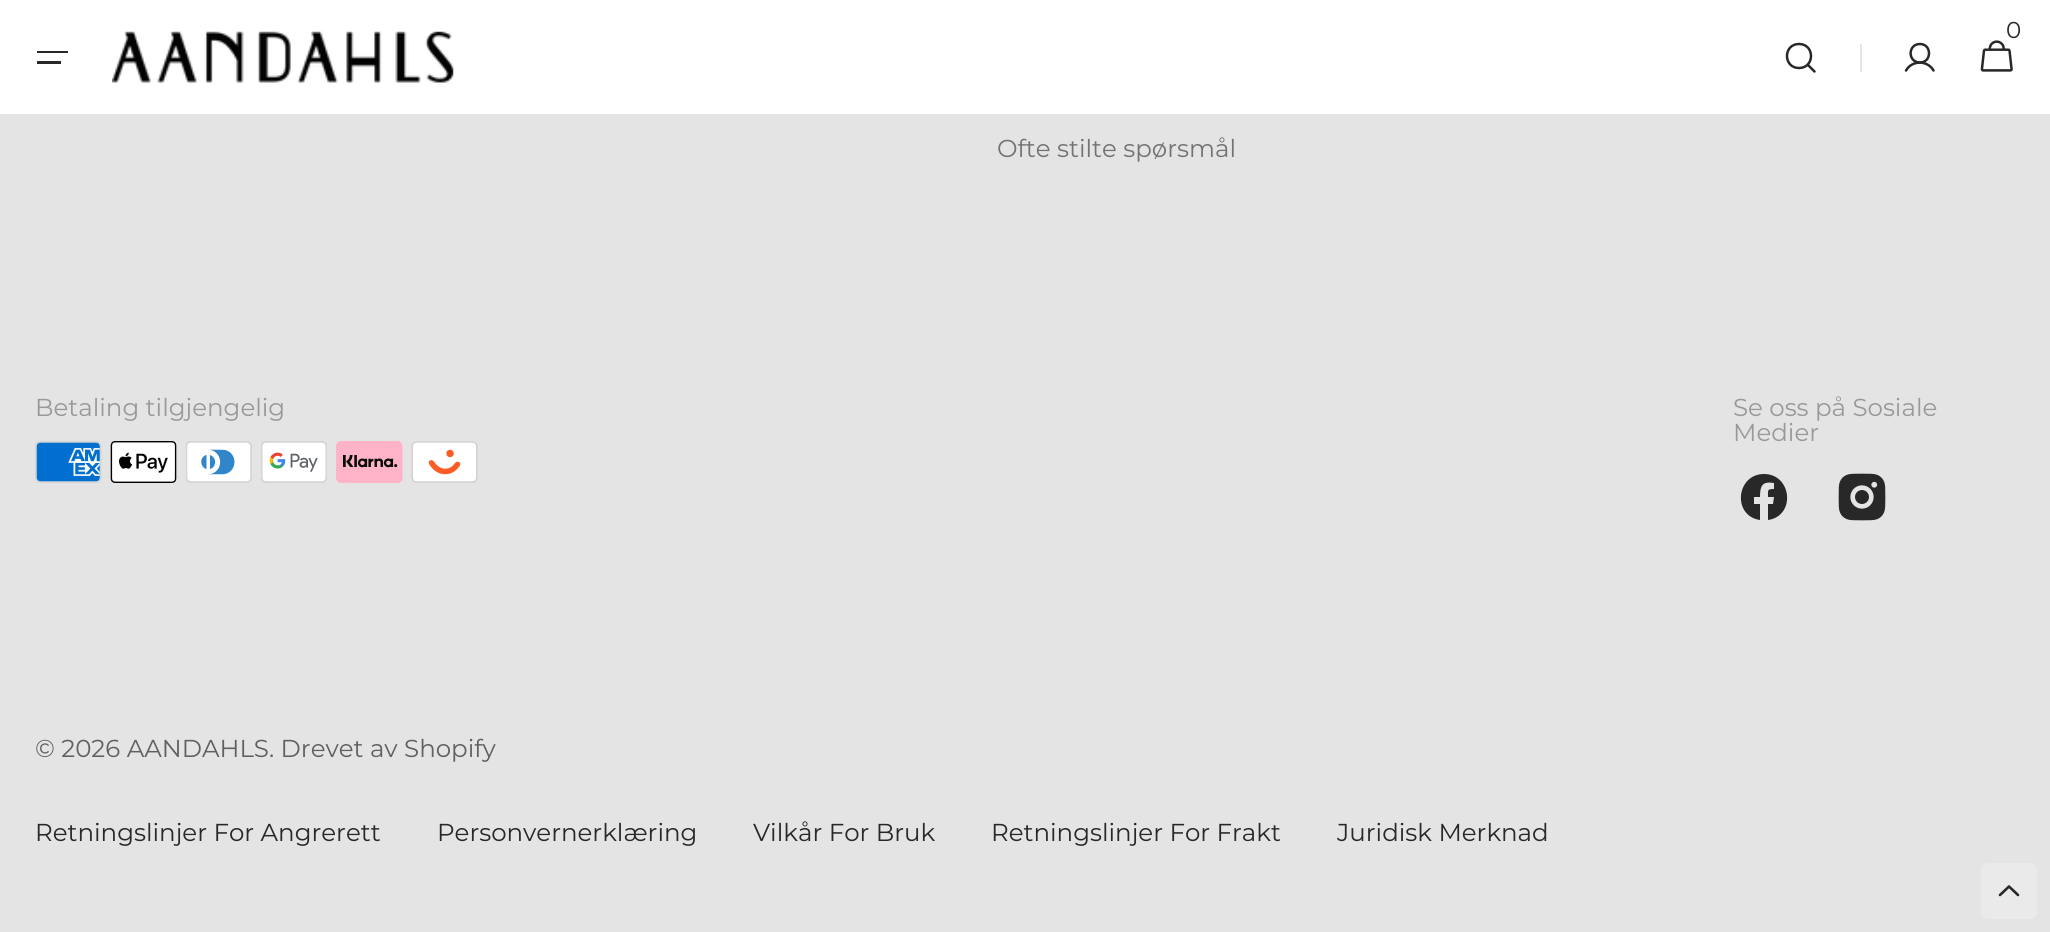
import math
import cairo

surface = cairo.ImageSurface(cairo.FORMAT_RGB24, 2050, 932)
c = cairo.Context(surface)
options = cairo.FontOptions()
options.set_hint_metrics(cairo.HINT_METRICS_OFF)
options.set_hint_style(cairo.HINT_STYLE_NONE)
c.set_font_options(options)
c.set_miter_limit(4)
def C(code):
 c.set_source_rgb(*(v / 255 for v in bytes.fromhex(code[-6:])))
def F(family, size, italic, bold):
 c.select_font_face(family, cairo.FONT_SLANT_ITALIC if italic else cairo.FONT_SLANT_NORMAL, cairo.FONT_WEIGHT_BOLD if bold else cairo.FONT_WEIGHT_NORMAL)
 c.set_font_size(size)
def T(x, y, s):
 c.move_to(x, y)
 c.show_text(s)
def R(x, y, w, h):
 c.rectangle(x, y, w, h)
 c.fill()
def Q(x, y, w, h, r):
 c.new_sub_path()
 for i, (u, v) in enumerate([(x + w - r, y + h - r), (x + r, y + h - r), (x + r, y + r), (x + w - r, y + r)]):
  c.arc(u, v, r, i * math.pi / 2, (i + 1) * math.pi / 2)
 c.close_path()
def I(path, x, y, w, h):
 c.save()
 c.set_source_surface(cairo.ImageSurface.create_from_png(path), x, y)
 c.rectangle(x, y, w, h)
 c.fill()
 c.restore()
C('e4e4e4')
c.paint()
C('ffffff')
R(0,0,2050,114)
C('282828')
R(37,51,31,2)
R(37,61,24,3)
I('1.png',112,31,342,52)
F('Montserrat',23,0,0)
T(2006,38,'0')
I('2.png',1980,40,33,32)
c.new_path()
c.move_to(1799,68)
c.curve_to(1815,68,1815,44,1799,44)
c.curve_to(1783,44,1783,68,1799,68)
c.close_path()
c.move_to(1807.5,64.5)
c.line_to(1814.5,71.5)
c.set_line_width(2.5)
c.set_line_cap(cairo.LINE_CAP_ROUND)
c.set_line_join(cairo.LINE_JOIN_ROUND)
c.stroke()
C('e5e5e5')
R(1860,44,2,28)
c.new_path()
c.move_to(1920,62.5)
c.curve_to(1932,62.5,1932,44,1920,44)
c.curve_to(1907.5,44,1907.5,62.5,1920,62.5)
c.close_path()
C('282828')
c.set_line_cap(cairo.LINE_CAP_BUTT)
c.set_line_join(cairo.LINE_JOIN_MITER)
c.stroke()
c.new_path()
c.move_to(1906,70.5)
c.curve_to(1912,60,1927.5,60,1933.5,70.5)
c.set_line_cap(cairo.LINE_CAP_ROUND)
c.set_line_join(cairo.LINE_JOIN_ROUND)
c.stroke()
F('Montserrat',24.5,0,0)
C('737373')
T(997,157,'Ofte stilte spørsmål')
C('999999')
T(35,416,'Betaling tilgjengelig')
I('3.png',35,441,67,42)
I('4.png',110,441,67,42)
I('5.png',186,441,66,42)
I('6.png',261,441,66,42)
I('7.png',336,441,67,42)
I('8.png',411,441,67,42)
T(1733,416,'Se oss på Sosiale')
T(1733,441,'Medier')
C('282828')
c.new_path()
c.move_to(1764,474)
c.curve_to(1736,474,1732,516,1760,520)
c.line_to(1760,504)
c.line_to(1754,504)
c.line_to(1754,497)
c.line_to(1760,497)
c.curve_to(1760,486,1762,481,1774,483)
c.line_to(1774,489)
c.curve_to(1767,489,1768,490,1768,497)
c.line_to(1774,497)
c.line_to(1773,504)
c.line_to(1768,504)
c.line_to(1768,520)
c.curve_to(1796,516,1792,474,1764,474)
c.close_path()
c.fill()
I('9.png',1838,473,48,48)
C('606060')
T(35,757,'© 2026 AANDAHLS')
T(269,757,'. Drevet av Shopify')
C('282828')
T(35,841,'Retningslinjer For Angrerett')
T(437,841,'Personvernerklæring')
T(753,841,'Vilkår For Bruk')
T(991,841,'Retningslinjer For Frakt')
T(1337,841,'Juridisk Merknad')
C('eaeaea')
Q(1981,863,56,56,7)
c.fill()
c.new_path()
c.move_to(2000,895)
c.line_to(2009,886.5)
c.line_to(2018,895)
C('282828')
c.set_line_width(2.6)
c.stroke()
surface.write_to_png('o.png')
